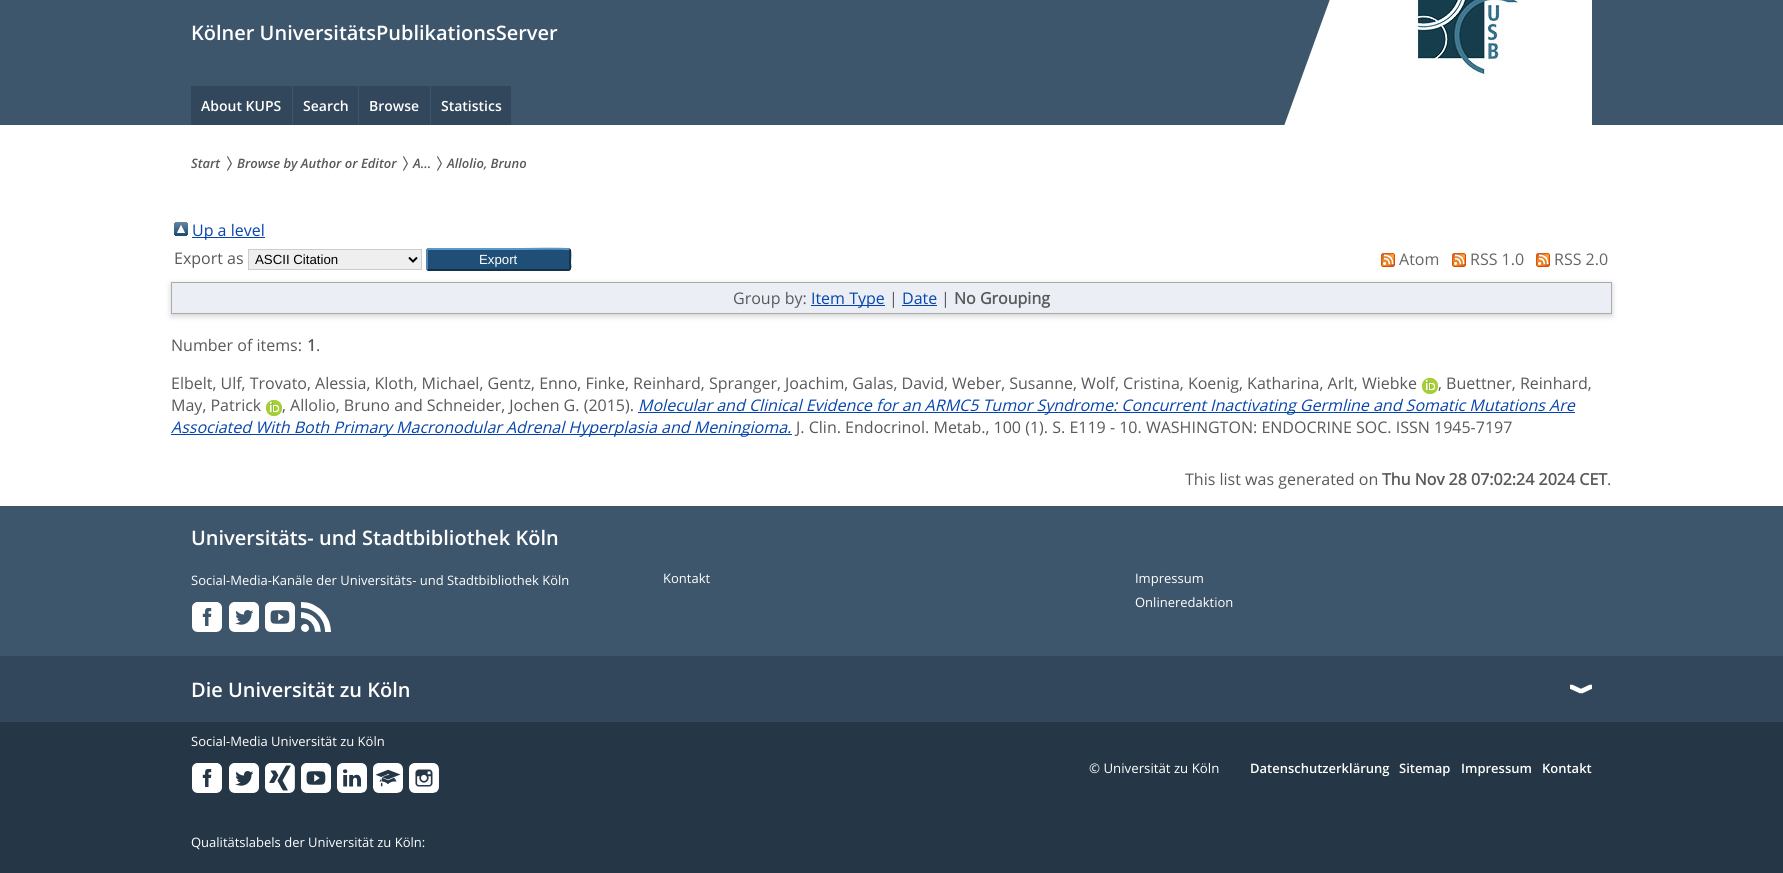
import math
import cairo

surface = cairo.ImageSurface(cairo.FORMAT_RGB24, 1783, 873)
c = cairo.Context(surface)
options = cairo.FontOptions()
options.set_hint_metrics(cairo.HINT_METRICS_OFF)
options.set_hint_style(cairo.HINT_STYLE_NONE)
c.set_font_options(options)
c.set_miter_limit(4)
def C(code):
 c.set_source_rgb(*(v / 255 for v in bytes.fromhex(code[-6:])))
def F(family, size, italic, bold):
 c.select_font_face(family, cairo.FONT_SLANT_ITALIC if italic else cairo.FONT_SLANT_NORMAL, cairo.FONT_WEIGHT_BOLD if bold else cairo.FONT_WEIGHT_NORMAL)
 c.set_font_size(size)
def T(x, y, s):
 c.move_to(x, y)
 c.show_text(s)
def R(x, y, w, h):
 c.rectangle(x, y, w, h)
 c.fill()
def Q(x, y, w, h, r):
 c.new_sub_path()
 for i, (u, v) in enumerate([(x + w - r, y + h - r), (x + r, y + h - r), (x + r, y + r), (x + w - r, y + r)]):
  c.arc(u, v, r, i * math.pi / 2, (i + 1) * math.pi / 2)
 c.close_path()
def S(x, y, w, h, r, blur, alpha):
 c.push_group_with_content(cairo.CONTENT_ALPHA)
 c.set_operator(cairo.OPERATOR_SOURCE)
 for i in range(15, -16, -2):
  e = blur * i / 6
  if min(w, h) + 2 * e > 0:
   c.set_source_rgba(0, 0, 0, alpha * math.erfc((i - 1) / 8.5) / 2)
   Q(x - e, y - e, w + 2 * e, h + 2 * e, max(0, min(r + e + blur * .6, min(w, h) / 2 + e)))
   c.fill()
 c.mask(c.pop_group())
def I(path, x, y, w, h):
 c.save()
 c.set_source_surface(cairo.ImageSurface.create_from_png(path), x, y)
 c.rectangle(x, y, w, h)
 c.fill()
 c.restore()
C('ffffff')
c.paint()
C('3e566c')
R(0,0,1783,125)
F('Open Sans SemiBold',20,0,0)
C('ffffff')
T(191,40,'Kölner UniversitätsPublikationsServer')
c.save()
c.rectangle(191,0,1401,125)
c.clip()
c.new_path()
c.move_to(1375,-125)
c.line_to(1704,-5)
c.line_to(1588,315)
c.line_to(1259,195)
c.close_path()
c.fill()
c.restore()
I('1.png',1416,0,104,77)
C('32475b')
R(191,86,101,39)
F('Open Sans SemiBold',14,0,0)
C('ffffff')
T(201,111,'About KUPS')
C('32475b')
R(293,86,65,39)
C('ffffff')
T(303,111,'Search')
C('32475b')
R(359,86,71,39)
C('ffffff')
T(369,111,'Browse')
C('32475b')
R(431,86,80,39)
C('ffffff')
T(441,111,'Statistics')
F('Open Sans SemiBold',13,1,0)
C('58595b')
T(191,168,'Start')
I('2.png',227,156,5,15)
T(237,168,'Browse by Author or Editor')
I('2.png',403,156,5,15)
T(413,168,'A...')
I('2.png',437,156,5,15)
T(447,168,'Allolio, Bruno')
I('3.png',174,222,14,14)
C('0645ad')
R(192,237,73,1)
F('Open Sans',16,0,0)
T(192,236,'Up a level')
C('58595b')
T(174,264,'Export as')
C('efefef')
c.rectangle(248.5,249.5,173,20)
c.fill_preserve()
C('cccccc')
c.set_line_width(1)
c.stroke()
c.new_path()
c.move_to(409,257.5)
c.line_to(413,261.5)
c.line_to(417,257.5)
C('000000')
c.set_line_width(2)
c.stroke()
F('Liberation Sans',13.25,0,0)
T(255,264,'ASCII Citation')
C('1f4f76')
Q(426,248,145,23,3)
c.fill()
c.new_path()
c.move_to(427.5,249.5)
c.line_to(429,249)
c.line_to(521.5,249)
c.curve_to(524.5,249,568,248,569.5,249.5)
C('5b97c7')
c.stroke()
c.new_path()
c.move_to(569.5,249.5)
c.curve_to(571,251,570,260,570,262.5)
c.curve_to(570,264,571.5,269,568.5,270)
c.line_to(429,270)
c.line_to(427.5,269.5)
C('13324a')
c.stroke()
c.new_path()
c.move_to(427.5,269.5)
c.curve_to(427,269,427,268.5,427,268)
c.line_to(427,251)
c.curve_to(427,250.5,427,250,427.5,249.5)
C('5287b3')
c.stroke()
C('ffffff')
T(479,264,'Export')
I('4.png',1381,253,14,14)
F('Open Sans',16,0,0)
C('666666')
T(1399,265,'Atom')
I('4.png',1452,253,14,14)
T(1470,265,'RSS 1.0')
I('4.png',1536,253,14,14)
T(1554,265,'RSS 2.0')
C('646464')
S(171,284,1441,32,0,3,.3)
C('ebeff5')
c.rectangle(171.5,282.5,1440,31)
c.fill_preserve()
C('aaaaaa')
c.set_line_width(1)
c.stroke()
C('58595b')
T(733,304,'Group by:')
C('0645ad')
R(811,305,74,1)
T(811,304,'Item Type')
C('58595b')
T(889,304,'|')
C('0645ad')
T(902,304,'Date')
R(902,305,35,1)
C('58595b')
T(941,304,'|')
F('Open Sans',16,0,1)
T(954,304,'No Grouping')
F('Open Sans',16,0,0)
T(171,351,'Number of items:')
F('Open Sans',16,0,1)
T(307,351,'1')
F('Open Sans',16,0,0)
T(316,351,'.')
T(171,389,'Elbelt, Ulf, Trovato, Alessia, Kloth, Michael, Gentz, Enno, Finke, Reinhard, Spranger, Joachim, Galas, David, Weber, Susanne, Wolf, Cristina, Koenig, Katharina, Arlt, Wiebke')
I('5.png',1422,378,16,16)
T(1438,389,', Buettner, Reinhard,')
T(171,411,'May, Patrick')
I('5.png',266,400,16,16)
T(282,411,', Allolio, Bruno and Schneider, Jochen G. (2015).')
C('0645ad')
R(638,412,937,1)
F('Open Sans',16,1,0)
T(638,411,'Molecular and Clinical Evidence for an ARMC5 Tumor Syndrome: Concurrent Inactivating Germline and Somatic Mutations Are')
R(171,434,621,1)
T(171,433,'Associated With Both Primary Macronodular Adrenal Hyperplasia and Meningioma.')
F('Open Sans',16,0,0)
C('58595b')
T(796,433,'J. Clin. Endocrinol. Metab., 100 (1). S. E119 - 10. WASHINGTON: ENDOCRINE SOC. ISSN 1945-7197')
T(1185,485,'This list was generated on')
F('Open Sans',16,0,1)
T(1382,485,'Thu Nov 28 07:02:24 2024 CET')
F('Open Sans',16,0,0)
T(1607,485,'.')
C('3e566c')
R(0,506,1783,150)
F('Open Sans SemiBold',20,0,0)
C('ffffff')
T(191,545,'Universitäts- und Stadtbibliothek Köln')
F('Open Sans',13,0,0)
T(191,585,'Social-Media-Kanäle der Universitäts- und Stadtbibliothek Köln')
T(663,583,'Kontakt')
T(1135,583,'Impressum')
T(1135,607,'Onlineredaktion')
I('6.png',192,602,30,30)
I('7.png',229,602,30,30)
I('8.png',265,602,30,30)
I('9.png',301,602,30,30)
C('32475b')
R(0,656,1783,66)
I('10.png',1570,684,22,10)
F('Open Sans SemiBold',20,0,0)
C('ffffff')
T(191,697,'Die Universität zu Köln')
C('253746')
R(0,722,1783,151)
F('Open Sans',13,0,0)
C('ffffff')
T(191,746,'Social-Media Universität zu Köln')
I('11.png',192,763,30,30)
I('12.png',229,763,30,30)
I('13.png',265,763,30,30)
I('14.png',301,763,30,30)
I('15.png',337,763,30,30)
I('16.png',373,763,30,30)
I('17.png',409,763,30,30)
F('Open Sans',13.25,0,0)
T(1089,773,'© Universität zu Köln')
F('Open Sans SemiBold',13,0,0)
T(1250,773,'Datenschutzerklärung')
T(1399,773,'Sitemap')
T(1461,773,'Impressum')
T(1542,773,'Kontakt')
F('Open Sans',13,0,0)
T(191,847,'Qualitätslabels der Universität zu Köln:')
surface.write_to_png('o.png')
